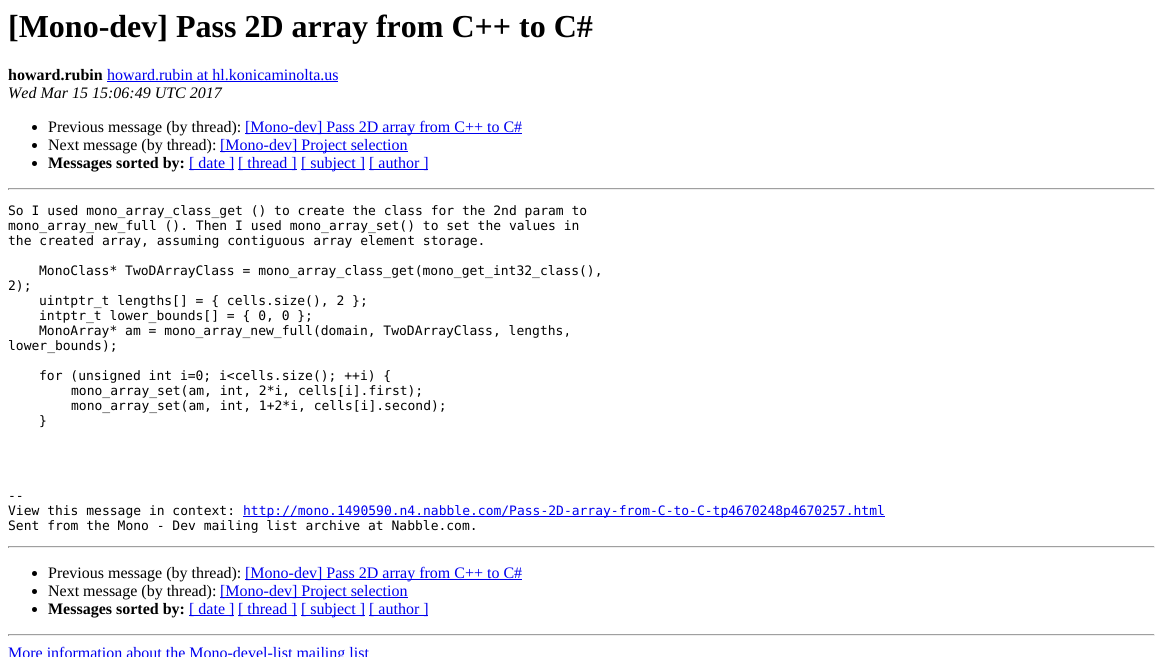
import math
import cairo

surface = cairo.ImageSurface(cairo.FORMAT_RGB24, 1163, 657)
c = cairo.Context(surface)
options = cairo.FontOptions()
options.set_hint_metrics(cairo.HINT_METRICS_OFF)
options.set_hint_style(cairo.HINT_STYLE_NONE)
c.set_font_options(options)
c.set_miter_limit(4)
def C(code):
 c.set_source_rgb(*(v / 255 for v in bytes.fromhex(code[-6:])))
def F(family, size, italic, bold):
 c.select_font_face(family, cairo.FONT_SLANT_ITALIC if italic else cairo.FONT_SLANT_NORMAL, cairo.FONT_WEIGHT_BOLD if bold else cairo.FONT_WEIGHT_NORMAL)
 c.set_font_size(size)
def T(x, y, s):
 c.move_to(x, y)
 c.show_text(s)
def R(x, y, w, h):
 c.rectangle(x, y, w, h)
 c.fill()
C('ffffff')
c.paint()
F('Liberation Serif',32,0,1)
C('000000')
T(8,37,'[Mono-dev] Pass 2D array from C++ to C#')
F('Liberation Serif',16,0,1)
T(8,80,'howard.rubin')
F('Liberation Serif',16,0,0)
C('0000ee')
T(107,80,'howard.rubin at hl.konicaminolta.us')
R(107,81,231,1)
F('Liberation Serif',16,1,0)
C('000000')
T(8,98,'Wed Mar 15 15:06:49 UTC 2017')
c.new_path()
c.arc(34.5,127.5,2.5,0,2 * math.pi)
c.fill()
F('Liberation Serif',16,0,0)
T(48,132,'Previous message (by thread):')
C('0000ee')
R(245,133,277,1)
T(245,132,'[Mono-dev] Pass 2D array from C++ to C#')
C('000000')
c.new_path()
c.arc(34.5,145.5,2.5,0,2 * math.pi)
c.fill()
T(48,150,'Next message (by thread):')
C('0000ee')
R(220,151,188,1)
T(220,150,'[Mono-dev] Project selection')
C('000000')
c.new_path()
c.arc(34.5,163.5,2.5,0,2 * math.pi)
c.fill()
F('Liberation Serif',16,0,1)
T(48,168,'Messages sorted by:')
C('0000ee')
R(189,169,45,1)
F('Liberation Serif',16,0,0)
T(189,168,'[ date ]')
R(238,169,59,1)
T(238,168,'[ thread ]')
R(301,169,64,1)
T(301,168,'[ subject ]')
R(369,169,59,1)
T(369,168,'[ author ]')
C('9f9f9f')
R(8,188,1147,1)
C('eeeeee')
R(1154,188,1,2)
R(8,189,1147,1)
C('9f9f9f')
R(8,188,1,2)
F('DejaVu Sans Mono',13,0,0)
C('000000')
T(8,215,'So I used mono_array_class_get () to create the class for the 2nd param to')
T(8,230,'mono_array_new_full (). Then I used mono_array_set() to set the values in')
T(8,245,'the created array, assuming contiguous array element storage.')
T(39,275,'MonoClass* TwoDArrayClass = mono_array_class_get(mono_get_int32_class(),')
T(8,290,'2);')
T(39,305,'uintptr_t lengths[] = { cells.size(), 2 };')
T(39,320,'intptr_t lower_bounds[] = { 0, 0 };')
T(39,335,'MonoArray* am = mono_array_new_full(domain, TwoDArrayClass, lengths,')
T(8,350,'lower_bounds);')
T(39,380,'for (unsigned int i=0; i<cells.size(); ++i) {')
T(71,395,'mono_array_set(am, int, 2*i, cells[i].first);')
T(71,410,'mono_array_set(am, int, 1+2*i, cells[i].second);')
T(39,425,'}')
T(8,500,'--')
T(8,515,'View this message in context:')
C('0000ee')
R(243,516,642,1)
T(243,515,'http://mono.1490590.n4.nabble.com/Pass-2D-array-from-C-to-C-tp4670248p4670257.html')
C('000000')
T(8,530,'Sent from the Mono - Dev mailing list archive at Nabble.com.')
C('9f9f9f')
R(8,546,1147,1)
C('eeeeee')
R(1154,546,1,2)
R(8,547,1147,1)
C('9f9f9f')
R(8,546,1,2)
C('000000')
c.new_path()
c.arc(34.5,573.5,2.5,0,2 * math.pi)
c.fill()
F('Liberation Serif',16,0,0)
T(48,578,'Previous message (by thread):')
C('0000ee')
R(245,579,277,1)
T(245,578,'[Mono-dev] Pass 2D array from C++ to C#')
C('000000')
c.new_path()
c.arc(34.5,591.5,2.5,0,2 * math.pi)
c.fill()
T(48,596,'Next message (by thread):')
C('0000ee')
R(220,597,188,1)
T(220,596,'[Mono-dev] Project selection')
C('000000')
c.new_path()
c.arc(34.5,609.5,2.5,0,2 * math.pi)
c.fill()
F('Liberation Serif',16,0,1)
T(48,614,'Messages sorted by:')
C('0000ee')
R(189,615,45,1)
F('Liberation Serif',16,0,0)
T(189,614,'[ date ]')
R(238,615,59,1)
T(238,614,'[ thread ]')
R(301,615,64,1)
T(301,614,'[ subject ]')
R(369,615,59,1)
T(369,614,'[ author ]')
C('9f9f9f')
R(8,634,1147,1)
C('eeeeee')
R(1154,634,1,2)
R(8,635,1147,1)
C('9f9f9f')
R(8,634,1,2)
C('0000ee')
T(8,658,'More information about the Mono-devel-list mailing list')
surface.write_to_png('o.png')
